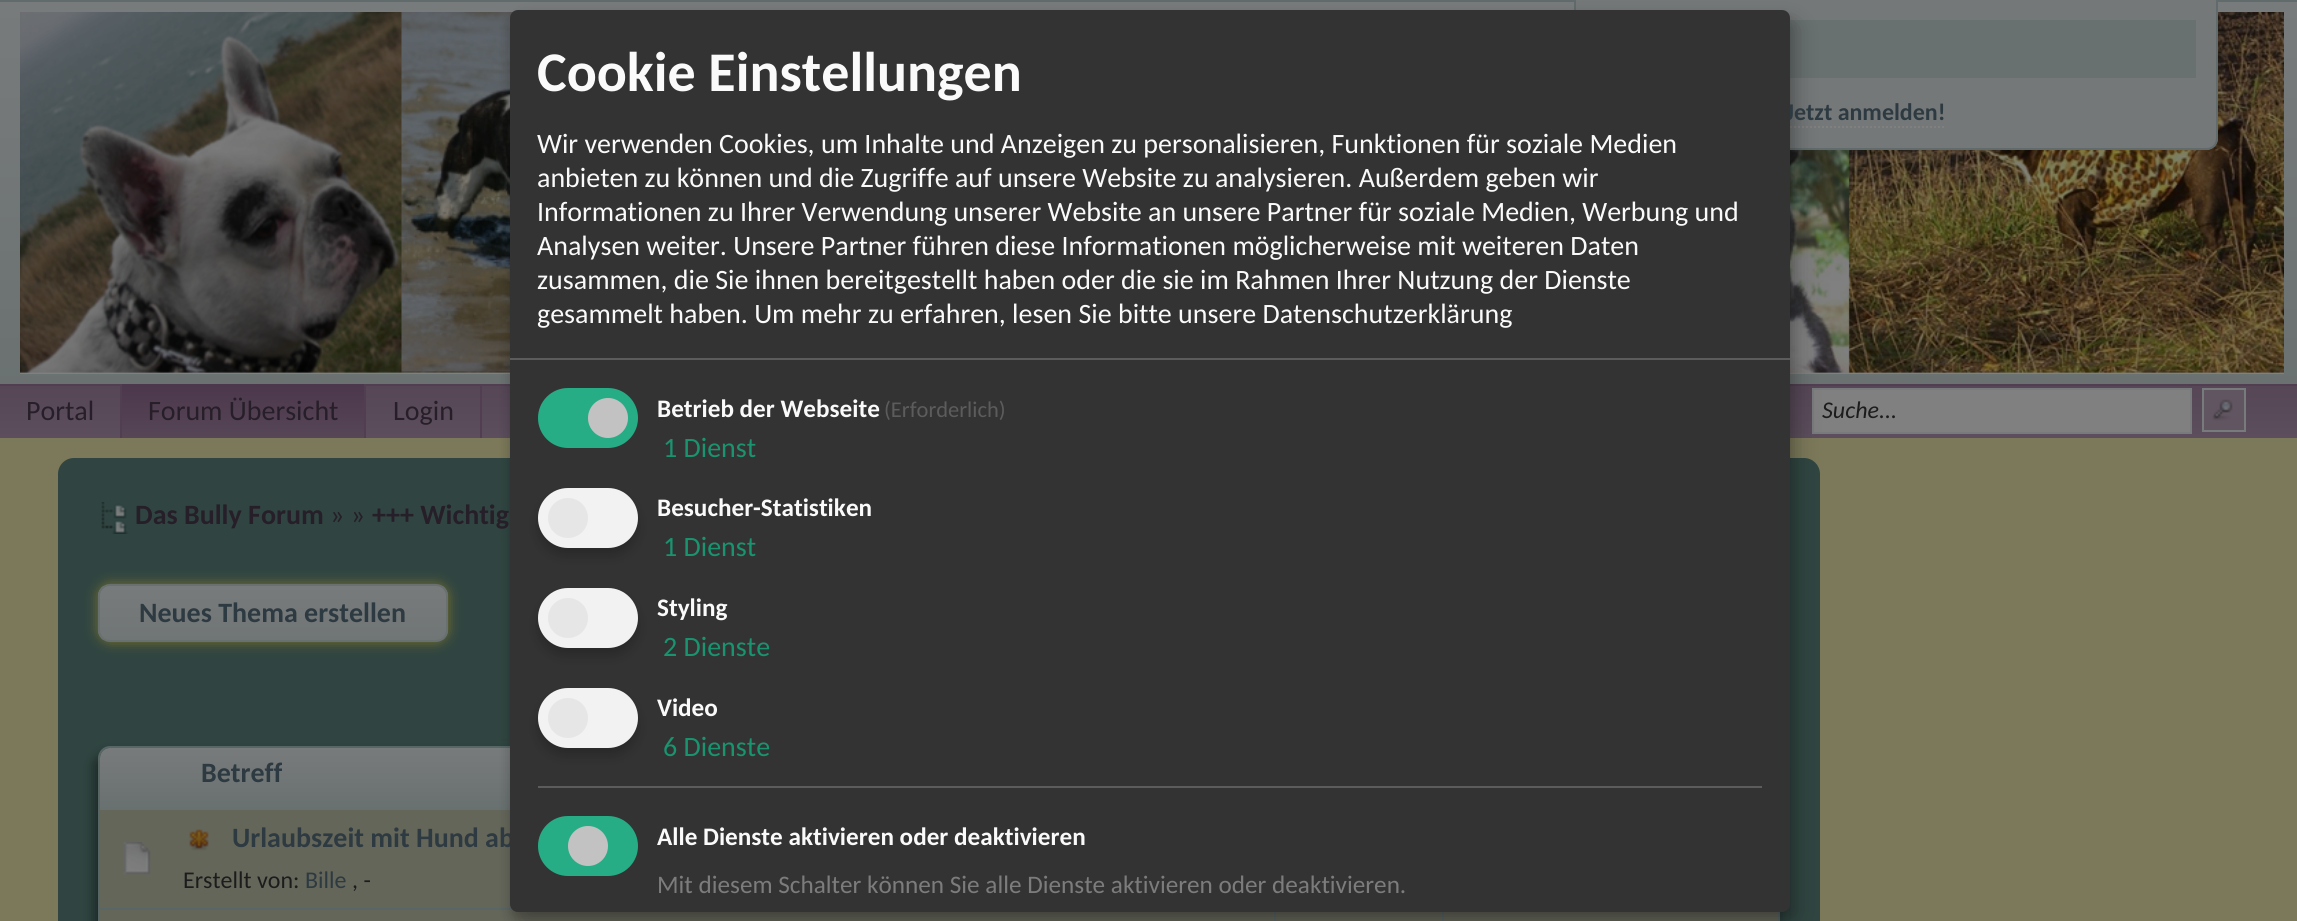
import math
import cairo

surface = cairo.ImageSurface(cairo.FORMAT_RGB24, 2297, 921)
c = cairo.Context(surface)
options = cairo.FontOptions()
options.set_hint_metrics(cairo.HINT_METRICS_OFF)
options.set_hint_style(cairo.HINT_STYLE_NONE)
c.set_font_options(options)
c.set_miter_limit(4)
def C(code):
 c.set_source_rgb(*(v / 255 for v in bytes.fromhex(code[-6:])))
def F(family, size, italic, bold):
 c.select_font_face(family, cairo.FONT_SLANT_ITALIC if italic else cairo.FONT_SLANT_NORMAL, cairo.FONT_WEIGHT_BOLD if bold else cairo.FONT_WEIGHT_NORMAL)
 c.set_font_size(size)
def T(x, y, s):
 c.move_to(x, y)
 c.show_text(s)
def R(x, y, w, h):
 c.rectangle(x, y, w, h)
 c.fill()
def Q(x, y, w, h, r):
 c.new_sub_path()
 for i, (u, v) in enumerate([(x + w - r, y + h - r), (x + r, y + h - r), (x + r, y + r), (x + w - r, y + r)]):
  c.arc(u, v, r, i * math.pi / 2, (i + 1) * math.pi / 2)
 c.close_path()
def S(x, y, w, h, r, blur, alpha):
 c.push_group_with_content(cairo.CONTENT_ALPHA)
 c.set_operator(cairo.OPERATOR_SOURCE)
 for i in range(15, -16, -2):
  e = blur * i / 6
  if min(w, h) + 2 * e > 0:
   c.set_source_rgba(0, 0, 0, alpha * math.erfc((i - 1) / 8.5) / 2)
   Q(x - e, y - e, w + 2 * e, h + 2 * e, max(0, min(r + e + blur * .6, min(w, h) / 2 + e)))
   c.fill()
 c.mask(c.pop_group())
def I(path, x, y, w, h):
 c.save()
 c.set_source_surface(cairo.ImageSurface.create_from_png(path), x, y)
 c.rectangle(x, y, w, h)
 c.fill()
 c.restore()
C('7c795a')
c.paint()
C('616b6b')
R(0,0,2297,2)
gradient = cairo.LinearGradient(0,2,0,438)
gradient.add_color_stop_rgba(0,0.471,0.482,0.482,1)
gradient.add_color_stop_rgba(1,0.412,0.439,0.439,1)
c.set_source(gradient)
R(0,2,2297,382)
I('1.png',20,12,2264,362)
C('757878')
c.new_path()
c.move_to(1574,0)
c.line_to(2218,0)
c.line_to(2218,138)
c.curve_to(2218,144.5,2212.5,150,2206,150)
c.line_to(1586,150)
c.curve_to(1579.5,150,1574,144.5,1574,138)
c.close_path()
c.fill()
C('616b6b')
c.set_fill_rule(cairo.FILL_RULE_EVEN_ODD)
c.new_path()
c.move_to(1574,0)
c.line_to(2218,0)
c.line_to(2218,138)
c.curve_to(2218,145,2213,150,2206,150)
c.line_to(1586,150)
c.curve_to(1579,150,1574,145,1574,138)
c.close_path()
c.move_to(1576,0)
c.line_to(2216,0)
c.line_to(2216,138)
c.curve_to(2216,144,2212,148,2206,148)
c.line_to(1586,148)
c.curve_to(1580,148,1576,144,1576,138)
c.close_path()
c.fill()
C('697070')
R(1790,20,406,58)
c.new_path()
c.move_to(1786,127)
c.line_to(1946,127)
C('808080')
c.set_dash([2,2])
c.stroke()
gradient = cairo.LinearGradient(0,384,0,438)
gradient.add_color_stop_rgba(0,0.337,0.275,0.337,1)
gradient.add_color_stop_rgba(1,0.361,0.306,0.361,1)
c.set_source(gradient)
R(0,386,2297,52)
C('513f51')
R(0,384,2297,2)
C('808080')
c.rectangle(1813,389,378,44)
c.fill_preserve()
C('787b7b')
c.set_dash([])
c.stroke()
C('304541')
Q(58,458,1762,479,16)
c.fill()
C('1b2724')
S(94,754,1682,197,12,6,1)
c.new_path()
c.move_to(110,747)
c.line_to(1768,747)
c.curve_to(1774,747,1779,752,1779,758)
c.line_to(1779,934)
c.line_to(99,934)
c.line_to(99,758)
c.curve_to(99,752,104,747,110,747)
c.close_path()
C('596666')
c.stroke()
gradient = cairo.LinearGradient(100,748,100,810)
gradient.add_color_stop_rgba(0,0.471,0.482,0.482,1)
gradient.add_color_stop_rgba(1,0.412,0.439,0.439,1)
c.set_source(gradient)
c.new_path()
c.move_to(110,748)
c.line_to(1768,748)
c.curve_to(1773.5,748,1778,752.5,1778,758)
c.line_to(1778,810)
c.line_to(100,810)
c.line_to(100,758)
c.curve_to(100,752.5,104.5,748,110,748)
c.close_path()
c.fill()
C('65665a')
R(100,810,412,98)
C('596666')
R(100,908,413,2)
C('65665a')
R(100,910,1678,11)
C('596666')
R(1274,908,2,13)
R(1442,908,2,13)
C('000000')
S(520,20,1280,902,8,10,.19)
S(510,18,1280,902,8,6,.2)
F('Carlito',24,0,1)
C('2d3a41')
T(1786,120,'Jetzt anmelden!')
F('Carlito',28,0,1)
T(232,847,'Urlaubszeit mit Hund ab')
C('333333')
Q(510,10,1280,902,8)
c.fill()
C('5c5c5c')
R(510,358,1280,2)
F('Carlito',56,0,1)
C('fafafa')
T(537,91,'Cookie Einstellungen')
F('Carlito',28,0,0)
T(537,153,'Wir verwenden Cookies, um Inhalte und Anzeigen zu personalisieren, Funktionen für soziale Medien')
T(537,187,'anbieten zu können und die Zugriffe auf unsere Website zu analysieren. Außerdem geben wir')
T(537,221,'Informationen zu Ihrer Verwendung unserer Website an unsere Partner für soziale Medien, Werbung und')
T(537,255,'Analysen weiter. Unsere Partner führen diese Informationen möglicherweise mit weiteren Daten')
T(537,289,'zusammen, die Sie ihnen bereitgestellt haben oder die sie im Rahmen Ihrer Nutzung der Dienste')
T(537,323,'gesammelt haben. Um mehr zu erfahren, lesen Sie bitte unsere Datenschutzerklärung')
C('27ad85')
Q(538,388,100,60,30)
c.fill()
C('c2c2c2')
c.arc(608,418,20,0,2 * math.pi)
c.fill()
F('Carlito',25.2,0,1)
C('fafafa')
T(657,417,'Betrieb der Webseite')
F('Carlito',22.5,0,0)
C('5c5c5c')
T(884,417,'(Erforderlich)')
F('Carlito',28,0,0)
C('1a936f')
T(663,457,'1 Dienst')
C('000000')
S(538,496,100,60,30,6,.2)
C('f2f2f2')
Q(538,488,100,60,30)
c.fill()
C('e6e6e6')
c.arc(568,518,20,0,2 * math.pi)
c.fill()
F('Carlito',25.2,0,1)
C('fafafa')
T(657,516,'Besucher-Statistiken')
F('Carlito',28,0,0)
C('1a936f')
T(663,556,'1 Dienst')
C('000000')
S(538,596,100,60,30,6,.2)
C('f2f2f2')
Q(538,588,100,60,30)
c.fill()
C('e6e6e6')
c.arc(568,618,20,0,2 * math.pi)
c.fill()
F('Carlito',25.2,0,1)
C('fafafa')
T(657,616,'Styling')
F('Carlito',28,0,0)
C('1a936f')
T(663,656,'2 Dienste')
C('000000')
S(538,696,100,60,30,6,.2)
C('f2f2f2')
Q(538,688,100,60,30)
c.fill()
C('e6e6e6')
c.arc(568,718,20,0,2 * math.pi)
c.fill()
F('Carlito',25.2,0,1)
C('fafafa')
T(657,716,'Video')
F('Carlito',28,0,0)
C('1a936f')
T(663,756,'6 Dienste')
C('5c5c5c')
R(538,786,1224,2)
C('27ad85')
Q(538,816,100,60,30)
c.fill()
C('c2c2c2')
c.arc(588,846,20,0,2 * math.pi)
c.fill()
F('Carlito',25.2,0,1)
C('fafafa')
T(657,845,'Alle Dienste aktivieren oder deaktivieren')
F('Carlito',25.2,0,0)
C('7c7c7c')
T(657,893,'Mit diesem Schalter können Sie alle Dienste aktivieren oder deaktivieren.')
F('Carlito',28,0,0)
C('261e28')
T(26,420,'Portal')
gradient = cairo.LinearGradient(122,384,122,438)
gradient.add_color_stop_rgba(0,0.298,0.216,0.298,1)
gradient.add_color_stop_rgba(1,0.337,0.275,0.337,1)
c.set_source(gradient)
R(122,384,242,54)
C('513f51')
R(364,384,2,54)
R(120,384,2,54)
C('261e28')
T(148,420,'Forum Übersicht')
T(393,420,'Login')
C('513f51')
R(480,384,2,54)
F('Carlito',24,1,0)
C('1c1c1c')
T(1822,418,'Suche...')
C('615561')
R(2204,390,40,40)
I('2.png',2212,399,21,22)
c.rectangle(2203,389,42,42)
C('787b7b')
c.stroke()
I('3.png',101,502,28,32)
F('Carlito',28,0,1)
C('261e28')
T(135,524,'Das Bully Forum')
F('Carlito',28,0,0)
T(330,524,'» »')
F('Carlito',28,0,1)
T(372,524,'+++ Wichtig')
C('77702c')
S(98,584,350,58,12,6,1)
c.save()
c.set_fill_rule(cairo.FILL_RULE_WINDING)
Q(98,584,350,58,12)
c.clip()
gradient = cairo.LinearGradient(100,586,100,640)
gradient.add_color_stop_rgba(0,0.471,0.482,0.482,1)
gradient.add_color_stop_rgba(1,0.439,0.459,0.459,1)
c.set_source(gradient)
R(98,586,350,54)
c.restore()
Q(99,585,348,56,11)
C('697070')
c.stroke()
C('2d3a41')
T(139,622,'Neues Thema erstellen')
T(201,782,'Betreff')
I('4.png',123,842,28,33)
I('5.png',189,829,20,22)
F('Carlito',24,0,0)
C('1c1c1c')
T(183,888,'Erstellt von:')
C('2d3a41')
T(305,888,'Bille')
C('1c1c1c')
T(352,888,', -')
surface.write_to_png('o.png')
